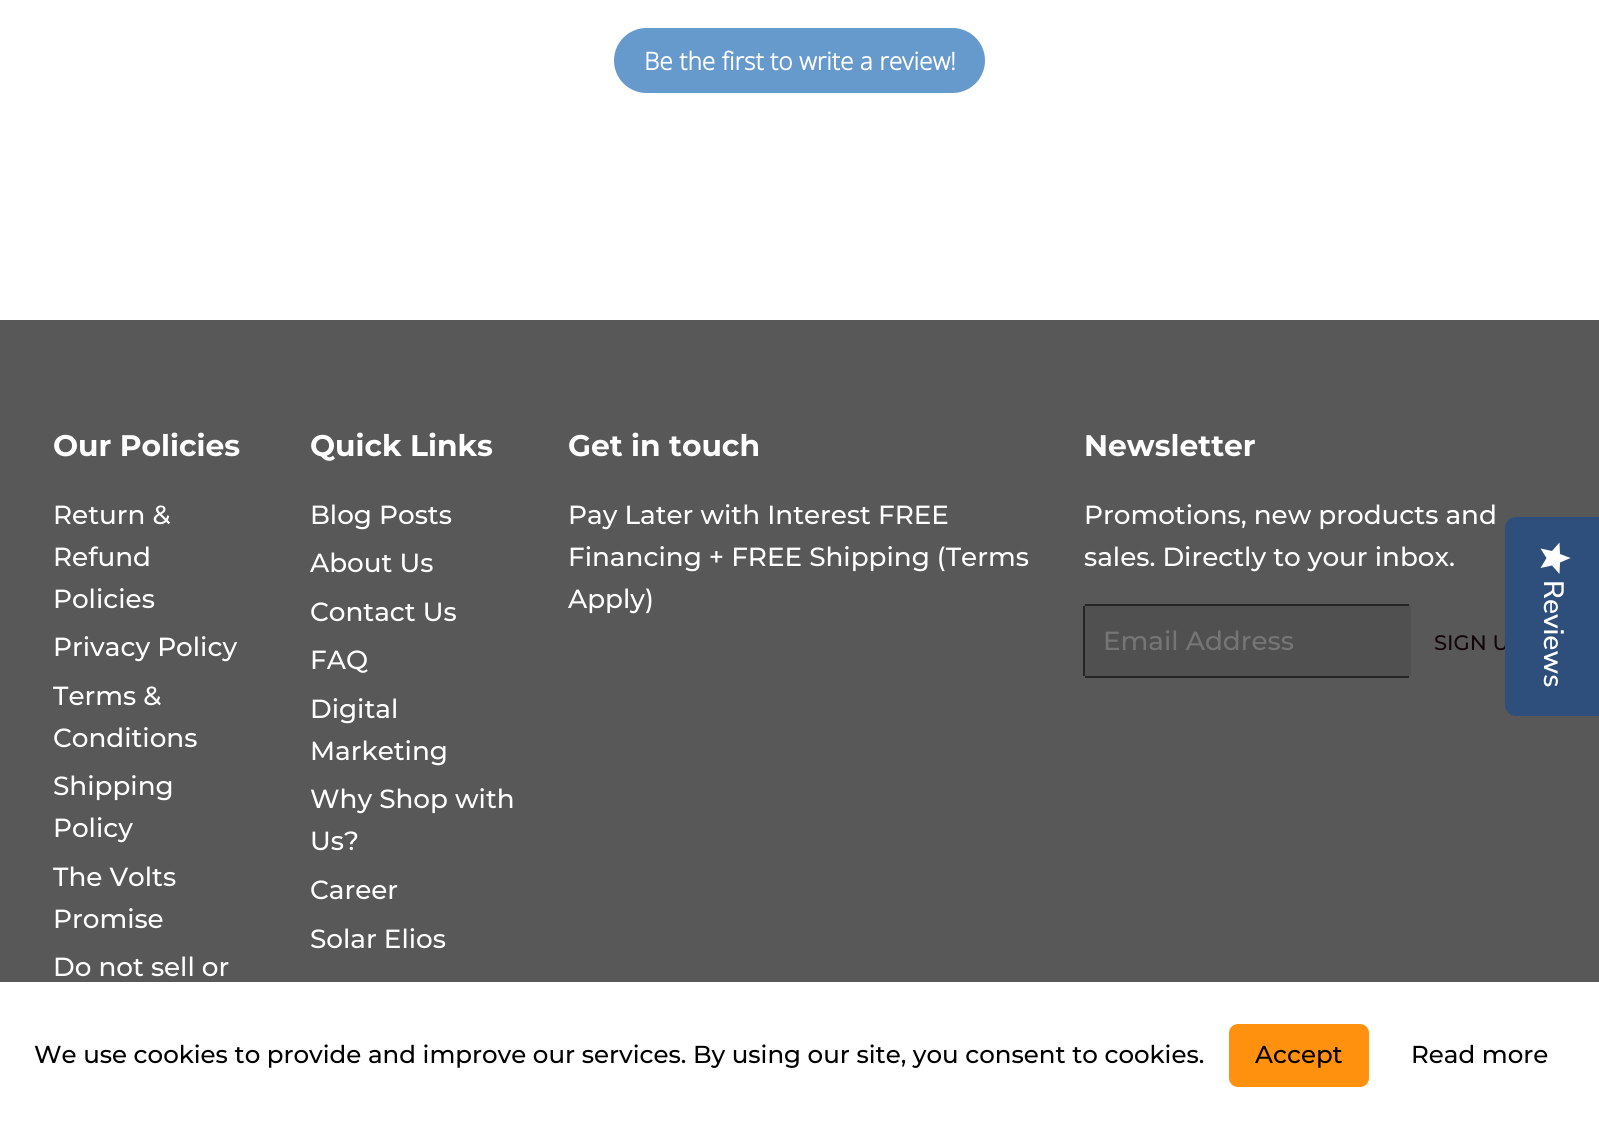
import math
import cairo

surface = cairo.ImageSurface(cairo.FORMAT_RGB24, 1599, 1128)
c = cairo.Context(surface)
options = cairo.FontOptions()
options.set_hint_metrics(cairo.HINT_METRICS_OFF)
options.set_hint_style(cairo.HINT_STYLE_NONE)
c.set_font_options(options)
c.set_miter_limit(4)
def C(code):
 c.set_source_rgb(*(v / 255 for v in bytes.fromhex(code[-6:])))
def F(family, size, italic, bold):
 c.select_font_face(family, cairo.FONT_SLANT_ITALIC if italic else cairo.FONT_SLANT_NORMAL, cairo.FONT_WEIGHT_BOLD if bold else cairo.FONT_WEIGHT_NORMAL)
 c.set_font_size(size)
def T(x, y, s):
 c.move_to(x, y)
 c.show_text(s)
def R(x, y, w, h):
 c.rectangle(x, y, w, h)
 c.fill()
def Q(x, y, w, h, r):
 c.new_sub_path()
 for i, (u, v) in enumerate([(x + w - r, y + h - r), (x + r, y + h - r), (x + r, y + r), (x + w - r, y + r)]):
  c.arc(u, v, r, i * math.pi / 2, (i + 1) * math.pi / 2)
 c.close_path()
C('ffffff')
c.paint()
C('6699cc')
Q(614,28,371,65,32.5)
c.fill()
F('Open Sans',24.5,0,1)
C('ffffff')
T(644,70,'Be the first to write a review!')
C('585858')
R(0,320,1599,662)
F('Montserrat',29.75,0,1)
C('ffffff')
T(53,456,'Our Policies')
F('Montserrat Medium',26.25,0,0)
T(53,524,'Return &')
T(53,566,'Refund')
T(53,608,'Policies')
T(53,656,'Privacy Policy')
T(53,705,'Terms &')
T(53,747,'Conditions')
T(53,795,'Shipping')
T(53,837,'Policy')
T(53,886,'The Volts')
T(53,928,'Promise')
T(53,976,'Do not sell or')
F('Montserrat',29.75,0,1)
T(310,456,'Quick Links')
F('Montserrat Medium',26.25,0,0)
T(310,524,'Blog Posts')
T(310,572,'About Us')
T(310,621,'Contact Us')
T(310,669,'FAQ')
T(310,718,'Digital')
T(310,760,'Marketing')
T(310,808,'Why Shop with')
T(310,850,'Us?')
T(310,899,'Career')
T(310,948,'Solar Elios')
F('Montserrat',29.75,0,1)
T(568,456,'Get in touch')
F('Montserrat Medium',26.25,0,0)
T(568,524,'Pay Later with Interest FREE')
T(568,566,'Financing + FREE Shipping (Terms')
T(568,608,'Apply)')
F('Montserrat',29.75,0,1)
T(1084,456,'Newsletter')
F('Montserrat Medium',26.25,0,0)
T(1084,524,'Promotions, new products and')
T(1084,566,'sales. Directly to your inbox.')
C('515050')
Q(1083,604,328,73,4)
c.fill()
C('252525')
R(1085,604,324,2)
R(1085,676,324,2)
R(1083,606,2,70)
C('757575')
T(1103,650,'Email Address')
F('Montserrat Medium',21,0,0)
C('13060a')
T(1434,650,'SIGN U')
C('2e4f7c')
c.new_path()
c.move_to(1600,517)
c.line_to(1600,716)
c.line_to(1516,716)
c.curve_to(1510,716,1505,711,1505,705)
c.line_to(1505,528)
c.curve_to(1505,522,1510,517,1516,517)
c.close_path()
c.fill()
gradient = cairo.LinearGradient(1571,543,1571,574)
gradient.add_color_stop_rgba(1,1,1,1,1)
gradient.add_color_stop_rgba(1,0.918,0.918,0.918,1)
c.set_source(gradient)
c.new_path()
c.move_to(1546.5,558)
c.line_to(1540.5,568)
c.line_to(1552,565.5)
c.line_to(1559.5,574)
c.line_to(1560,562.5)
c.line_to(1570.5,558)
c.line_to(1560,554)
c.line_to(1559.5,542.5)
c.line_to(1552,551)
c.line_to(1540.5,548.5)
c.close_path()
c.fill()
F('Nunito Sans ExtraLight',28,0,0)
C('ffffff')
c.save()
c.translate(1544,580)
c.rotate(90 * math.pi / 180)
T(0,0,'Reviews')
c.restore()
F('Montserrat Medium',24.5,0,0)
C('000000')
T(34,1063,'We use cookies to provide and improve our services. By using our site, you consent to cookies.')
C('ff910e')
Q(1229,1024,140,63,9)
c.fill()
C('000000')
T(1255,1063,'Accept')
T(1411,1063,'Read more')
surface.write_to_png('o.png')
